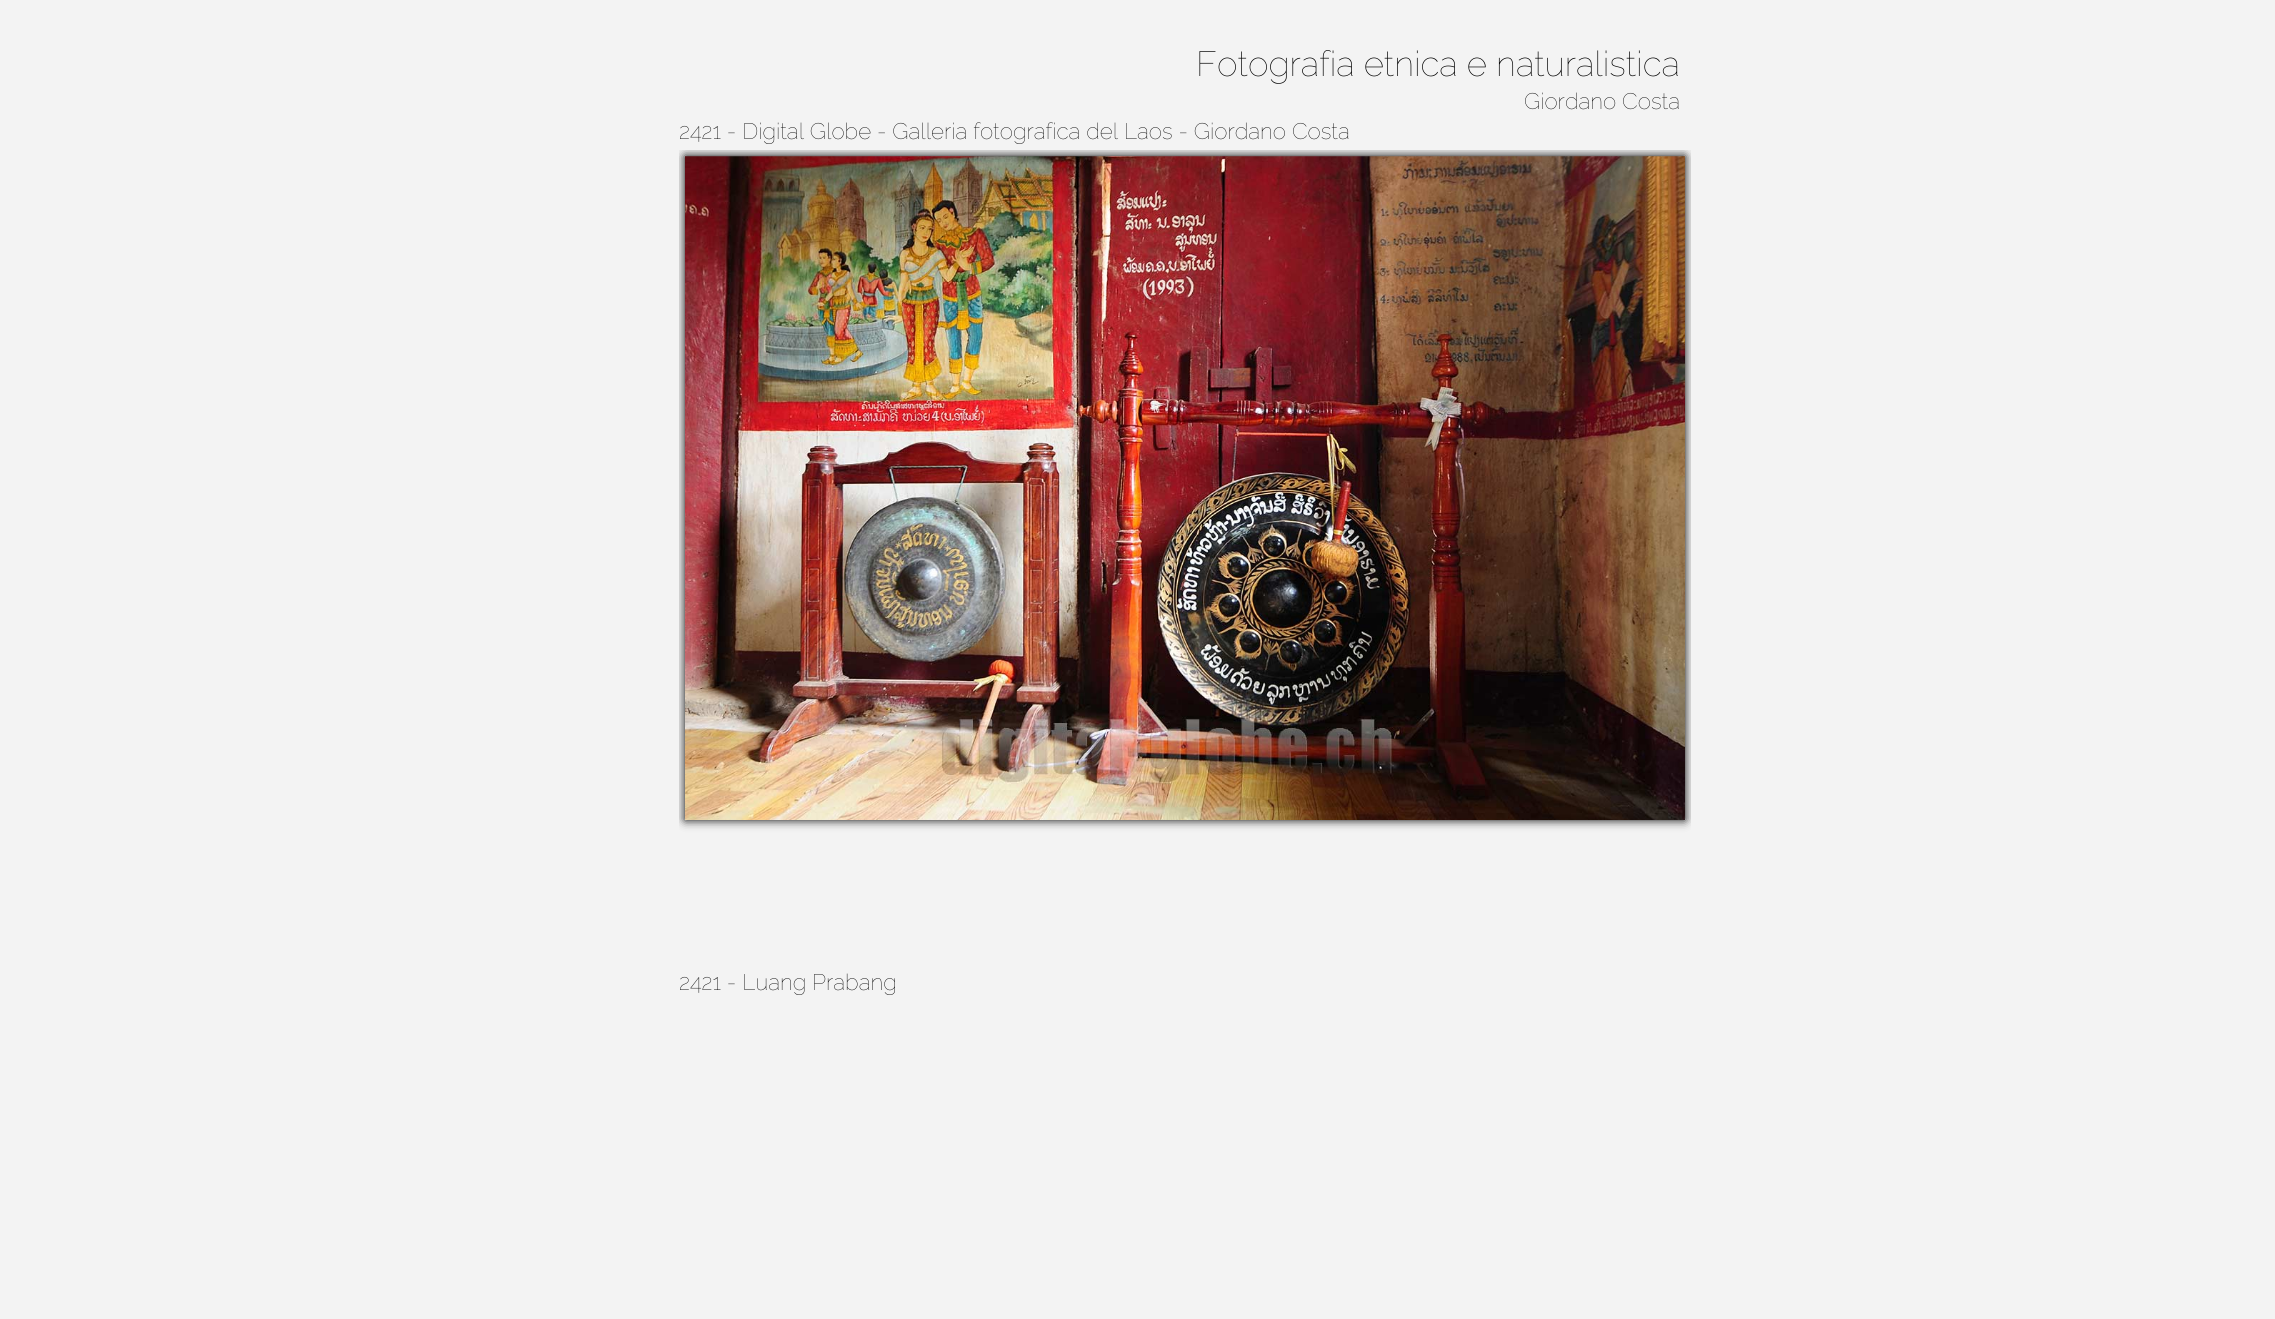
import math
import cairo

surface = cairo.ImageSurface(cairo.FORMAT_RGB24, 2275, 1319)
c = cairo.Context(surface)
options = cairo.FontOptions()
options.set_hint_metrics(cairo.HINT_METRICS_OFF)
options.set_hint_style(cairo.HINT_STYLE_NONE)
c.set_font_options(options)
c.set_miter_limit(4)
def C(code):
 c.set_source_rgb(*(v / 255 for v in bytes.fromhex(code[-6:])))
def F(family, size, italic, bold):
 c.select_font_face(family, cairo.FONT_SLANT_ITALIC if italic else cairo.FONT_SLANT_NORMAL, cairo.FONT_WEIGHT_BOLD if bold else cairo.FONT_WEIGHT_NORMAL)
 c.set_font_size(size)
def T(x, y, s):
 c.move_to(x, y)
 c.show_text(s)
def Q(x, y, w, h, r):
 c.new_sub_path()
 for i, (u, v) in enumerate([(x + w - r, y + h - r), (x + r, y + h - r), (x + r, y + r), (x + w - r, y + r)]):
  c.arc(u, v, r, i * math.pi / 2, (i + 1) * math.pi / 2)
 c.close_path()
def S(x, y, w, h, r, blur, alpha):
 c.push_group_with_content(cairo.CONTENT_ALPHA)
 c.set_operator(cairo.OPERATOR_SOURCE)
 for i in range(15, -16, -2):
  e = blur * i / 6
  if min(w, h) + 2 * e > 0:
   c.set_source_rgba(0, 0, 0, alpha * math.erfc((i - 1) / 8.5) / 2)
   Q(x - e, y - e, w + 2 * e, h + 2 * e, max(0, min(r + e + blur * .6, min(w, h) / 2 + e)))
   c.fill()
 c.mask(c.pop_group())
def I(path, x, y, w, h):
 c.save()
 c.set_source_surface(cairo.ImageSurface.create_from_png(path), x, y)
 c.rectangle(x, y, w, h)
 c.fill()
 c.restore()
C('f3f3f3')
c.paint()
F('Raleway Thin',35,0,0)
C('000000')
T(1196,76,'Fotografia etnica e naturalistica')
F('Raleway Thin',22.5,0,0)
T(1524,109,'Giordano Costa')
T(679,139,'2421 - Digital Globe - Galleria fotografica del Laos - Giordano Costa')
c.save()
c.rectangle(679,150,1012,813)
c.clip()
C('000000')
S(685,156,1000,664,0,5,1)
c.restore()
I('1.png',685,156,1000,664)
T(679,990,'2421 - Luang Prabang')
surface.write_to_png('o.png')
